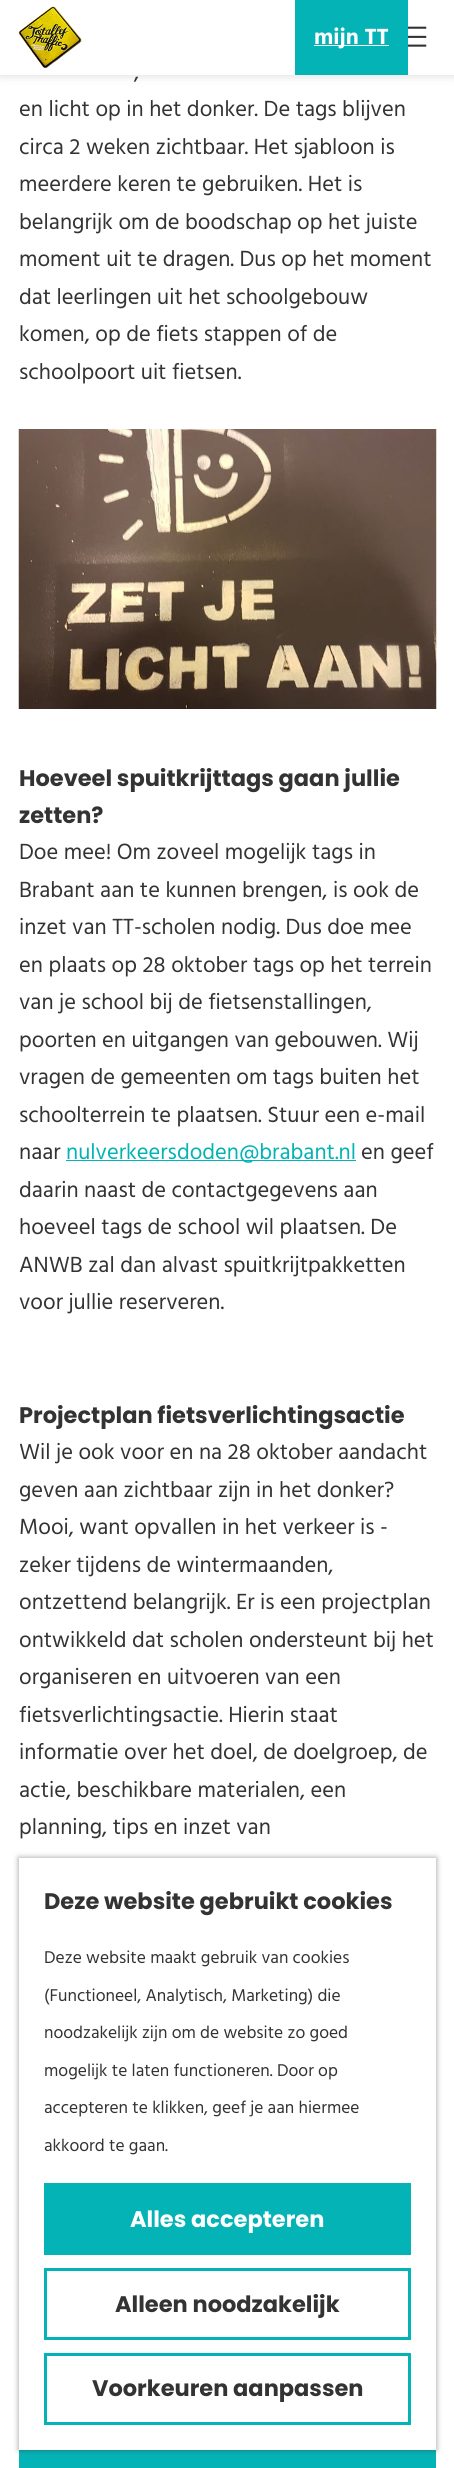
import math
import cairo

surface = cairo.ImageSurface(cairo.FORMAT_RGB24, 454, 2468)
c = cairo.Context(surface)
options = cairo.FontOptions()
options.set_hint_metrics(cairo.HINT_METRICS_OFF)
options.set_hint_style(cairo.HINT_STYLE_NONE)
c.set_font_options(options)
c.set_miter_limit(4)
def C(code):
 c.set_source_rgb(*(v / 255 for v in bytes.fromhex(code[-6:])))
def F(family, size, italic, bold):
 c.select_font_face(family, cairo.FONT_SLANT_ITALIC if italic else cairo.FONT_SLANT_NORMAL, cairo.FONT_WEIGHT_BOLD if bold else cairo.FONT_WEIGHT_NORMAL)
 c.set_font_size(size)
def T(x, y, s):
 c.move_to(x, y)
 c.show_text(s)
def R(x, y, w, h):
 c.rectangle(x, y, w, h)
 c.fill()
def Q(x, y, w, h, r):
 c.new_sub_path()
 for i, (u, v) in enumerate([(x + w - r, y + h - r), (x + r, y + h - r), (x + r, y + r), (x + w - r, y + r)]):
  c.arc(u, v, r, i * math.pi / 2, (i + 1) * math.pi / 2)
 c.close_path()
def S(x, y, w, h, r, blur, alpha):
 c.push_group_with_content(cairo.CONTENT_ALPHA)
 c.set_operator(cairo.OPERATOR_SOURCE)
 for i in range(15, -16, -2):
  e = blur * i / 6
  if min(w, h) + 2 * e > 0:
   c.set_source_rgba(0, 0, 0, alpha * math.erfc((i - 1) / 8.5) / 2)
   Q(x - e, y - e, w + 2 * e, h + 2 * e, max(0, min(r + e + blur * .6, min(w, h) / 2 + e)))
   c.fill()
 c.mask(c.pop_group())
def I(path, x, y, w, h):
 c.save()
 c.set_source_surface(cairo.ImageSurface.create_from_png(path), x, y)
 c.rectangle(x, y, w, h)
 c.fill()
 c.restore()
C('ffffff')
c.paint()
C('333333')
S(0,0,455,75,0,5,.2)
C('ffffff')
R(0,0,454,75)
I('1.png',18,6,64,63)
C('04b3b6')
R(295,0,113,75)
C('ffffff')
R(314,45,75,1)
F('Hind Madurai',22.5,0,1)
T(314,44,'mijn TT')
I('2.png',408,26,19,21)
F('Hind Madurai',22.5,0,0)
C('333333')
T(134,79,',')
T(19,116,'en licht op in het donker. De tags blijven')
T(19,154,'circa 2 weken zichtbaar. Het sjabloon is')
T(19,191,'meerdere keren te gebruiken. Het is')
T(19,229,'belangrijk om de boodschap op het juiste')
T(19,266,'moment uit te dragen. Dus op het moment')
T(19,304,'dat leerlingen uit het schoolgebouw')
T(19,341,'komen, op de fiets stappen of de')
T(19,379,'schoolpoort uit fietsen.')
I('3.png',18,429,419,280)
F('Poppins',22.5,0,1)
T(19,786,'Hoeveel spuitkrijttags gaan jullie')
T(19,823,'zetten?')
F('Hind Madurai',22.5,0,0)
T(19,859,'Doe mee! Om zoveel mogelijk tags in')
T(19,897,'Brabant aan te kunnen brengen, is ook de')
T(19,934,'inzet van TT-scholen nodig. Dus doe mee')
T(19,972,'en plaats op 28 oktober tags op het terrein')
T(19,1009,'van je school bij de fietsenstallingen,')
T(19,1047,'poorten en uitgangen van gebouwen. Wij')
T(19,1084,'vragen de gemeenten om tags buiten het')
T(19,1122,'schoolterrein te plaatsen. Stuur een e-mail')
T(19,1159,'naar')
C('04b3b6')
R(66,1160,290,1)
T(66,1159,'nulverkeersdoden@brabant.nl')
C('333333')
T(361,1159,'en geef')
T(19,1197,'daarin naast de contactgegevens aan')
T(19,1234,'hoeveel tags de school wil plaatsen. De')
T(19,1272,'ANWB zal dan alvast spuitkrijtpakketten')
T(19,1309,'voor jullie reserveren.')
F('Poppins',22.5,0,1)
T(19,1423,'Projectplan fietsverlichtingsactie')
F('Hind Madurai',22.5,0,0)
T(19,1459,'Wil je ook voor en na 28 oktober aandacht')
T(19,1497,'geven aan zichtbaar zijn in het donker?')
T(19,1534,'Mooi, want opvallen in het verkeer is -')
T(19,1572,'zeker tijdens de wintermaanden,')
T(19,1609,'ontzettend belangrijk. Er is een projectplan')
T(19,1647,'ontwikkeld dat scholen ondersteunt bij het')
T(19,1684,'organiseren en uitvoeren van een')
T(19,1722,'fietsverlichtingsactie. Hierin staat')
T(19,1759,'informatie over het doel, de doelgroep, de')
T(19,1797,'actie, beschikbare materialen, een')
T(19,1834,'planning, tips en inzet van')
C('04b3b6')
R(19,2450,417,18)
C('333333')
S(19,1858,417,592,0,3,.5)
C('ffffff')
R(19,1858,417,592)
F('Poppins',22.5,0,1)
C('333333')
T(44,1909,'Deze website gebruikt cookies')
F('Hind Madurai',17.5,0,0)
T(44,1963,'Deze website maakt gebruik van cookies')
T(44,2001,'(Functioneel, Analytisch, Marketing) die')
T(44,2038,'noodzakelijk zijn om de website zo goed')
T(44,2076,'mogelijk te laten functioneren. Door op')
T(44,2113,'accepteren te klikken, geef je aan hiermee')
T(44,2151,'akkoord te gaan.')
C('04b3b6')
R(44,2183,367,72)
F('Poppins',22.5,0,1)
C('ffffff')
T(130,2227,'Alles accepteren')
c.rectangle(45.5,2269.5,364,69)
C('04b3b6')
c.set_line_width(3)
c.stroke()
C('333333')
T(115,2312,'Alleen noodzakelijk')
c.rectangle(45.5,2354.5,364,69)
C('04b3b6')
c.stroke()
C('333333')
T(92,2396,'Voorkeuren aanpassen')
surface.write_to_png('o.png')
